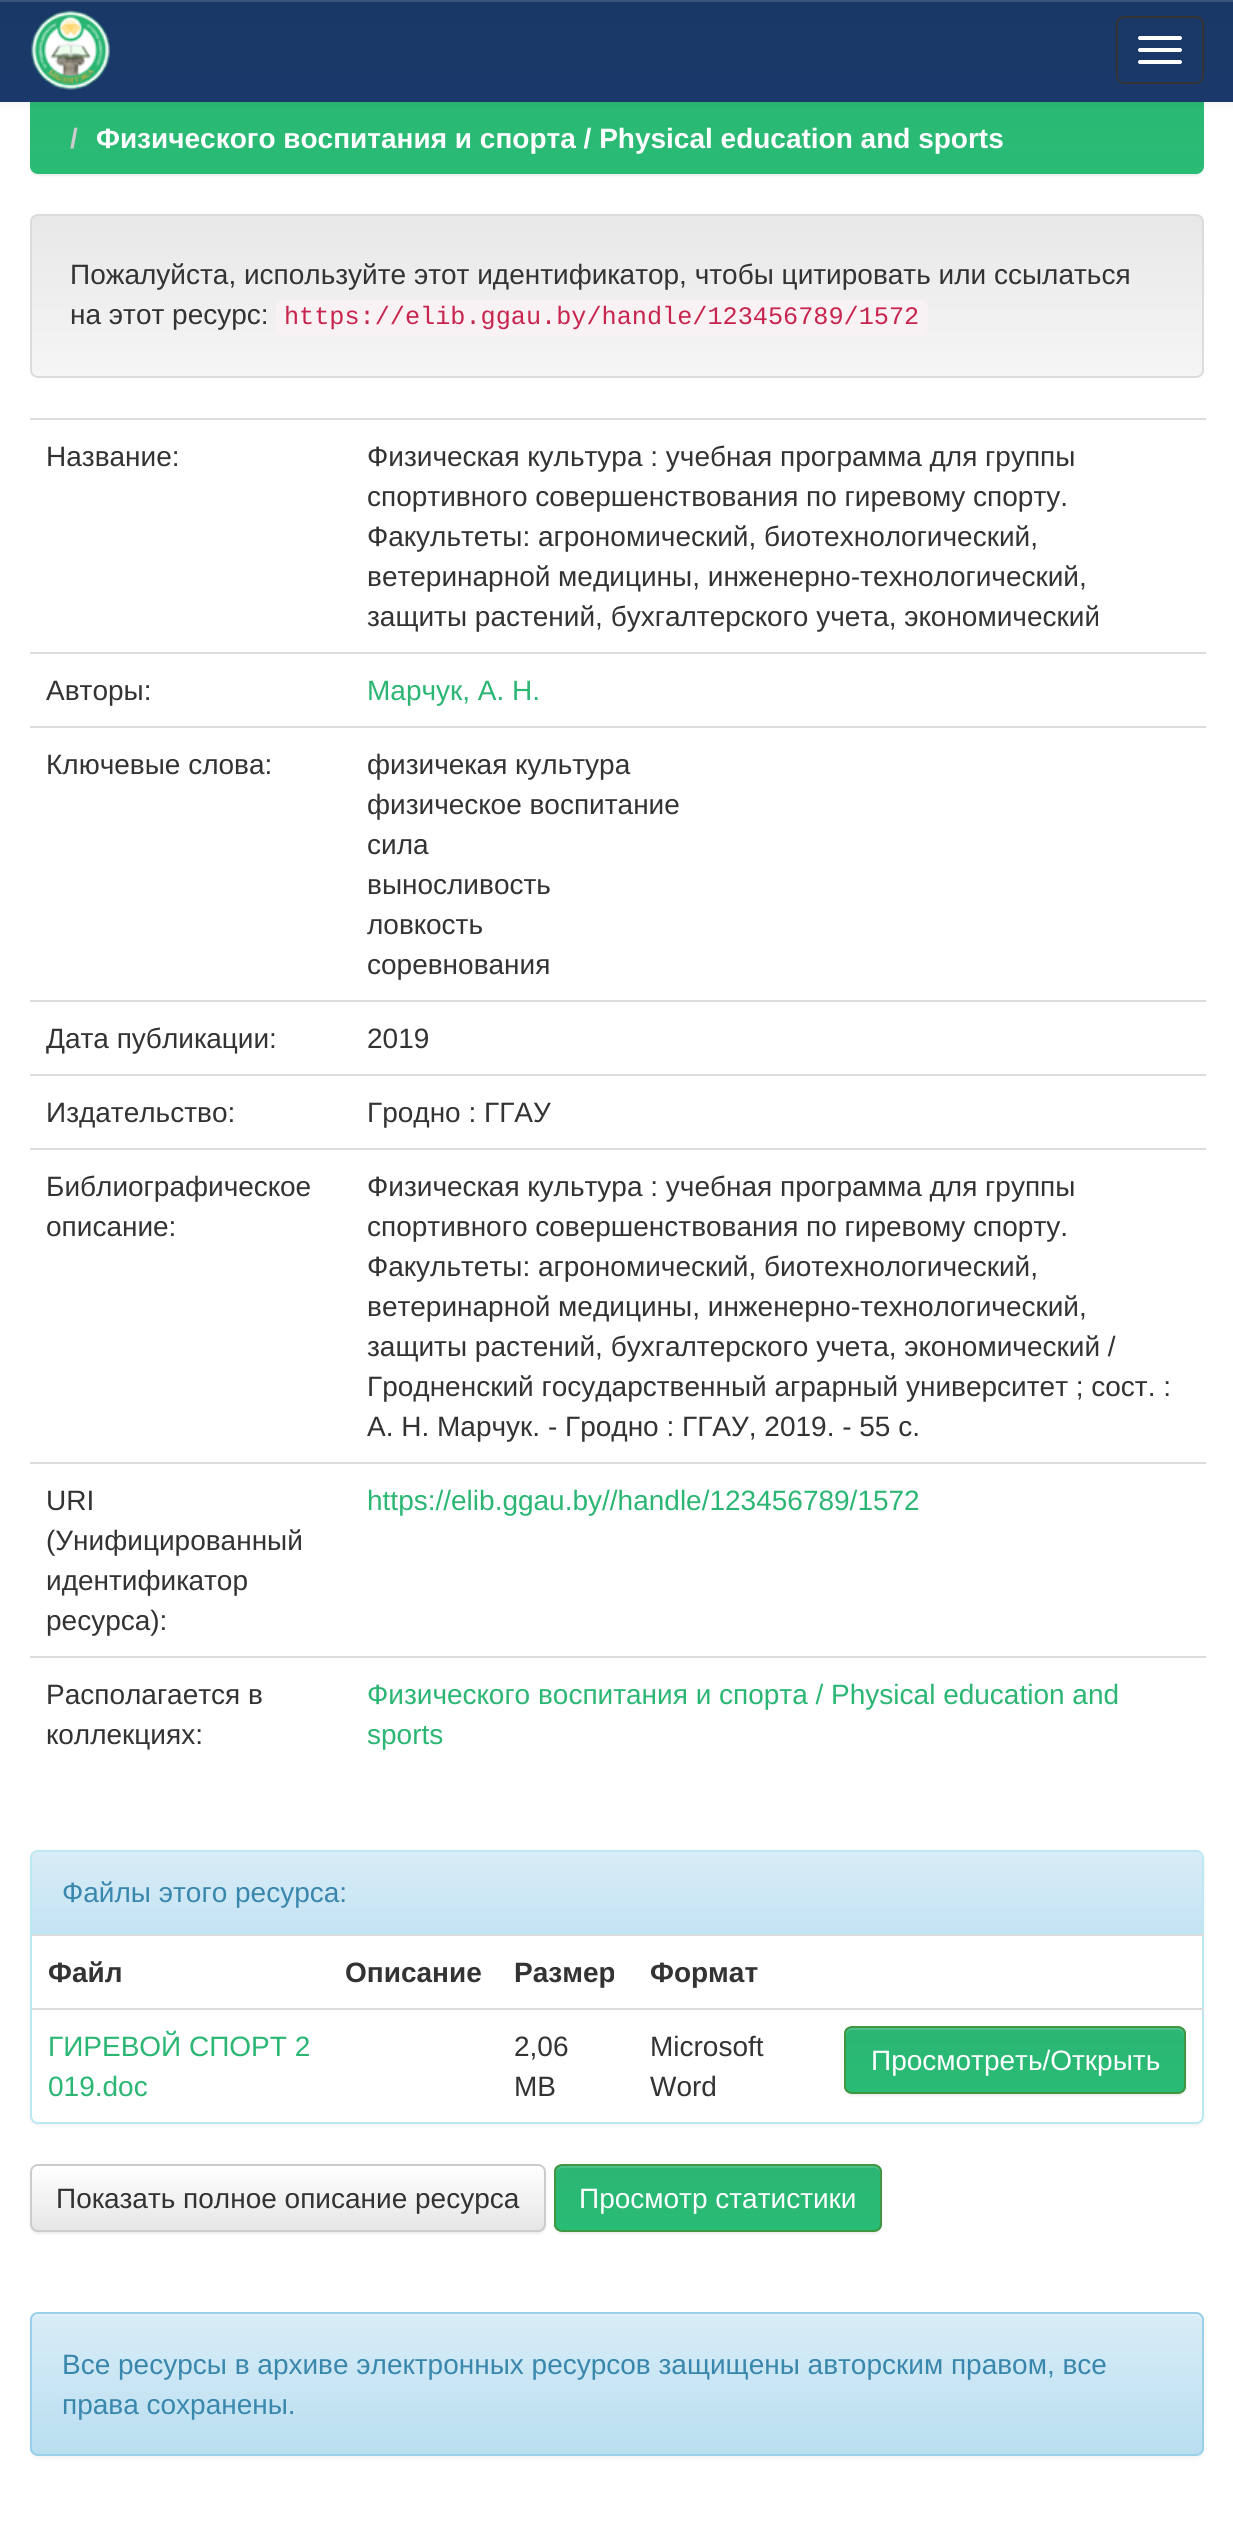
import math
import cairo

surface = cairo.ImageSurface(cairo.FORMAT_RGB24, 1233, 2533)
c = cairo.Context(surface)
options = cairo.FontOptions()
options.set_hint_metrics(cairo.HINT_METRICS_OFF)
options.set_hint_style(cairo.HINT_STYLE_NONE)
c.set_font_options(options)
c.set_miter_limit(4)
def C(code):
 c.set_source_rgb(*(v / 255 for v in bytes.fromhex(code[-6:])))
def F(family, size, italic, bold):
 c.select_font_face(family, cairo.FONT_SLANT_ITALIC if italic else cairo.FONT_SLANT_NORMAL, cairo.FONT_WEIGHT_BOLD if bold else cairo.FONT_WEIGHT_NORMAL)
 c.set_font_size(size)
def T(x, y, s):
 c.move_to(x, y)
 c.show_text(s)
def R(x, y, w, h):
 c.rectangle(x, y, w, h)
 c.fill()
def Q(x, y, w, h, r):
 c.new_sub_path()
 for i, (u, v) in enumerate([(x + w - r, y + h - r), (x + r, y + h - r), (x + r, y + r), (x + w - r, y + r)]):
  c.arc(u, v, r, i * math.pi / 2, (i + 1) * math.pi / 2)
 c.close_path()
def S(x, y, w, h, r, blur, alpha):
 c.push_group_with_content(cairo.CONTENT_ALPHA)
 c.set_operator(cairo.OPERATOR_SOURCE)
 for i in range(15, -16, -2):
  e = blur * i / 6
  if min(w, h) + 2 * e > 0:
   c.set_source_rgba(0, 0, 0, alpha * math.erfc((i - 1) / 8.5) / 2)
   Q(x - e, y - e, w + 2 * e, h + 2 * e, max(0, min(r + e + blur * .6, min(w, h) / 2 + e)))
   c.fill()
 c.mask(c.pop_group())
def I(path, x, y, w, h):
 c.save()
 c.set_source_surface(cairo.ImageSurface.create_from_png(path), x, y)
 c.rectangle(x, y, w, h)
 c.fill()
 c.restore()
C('ffffff')
c.paint()
C('000000')
S(30,64,1174,112,8,1,.07)
gradient = cairo.LinearGradient(617,62,617,174)
gradient.add_color_stop_rgba(0,0.169,0.714,0.451,1)
gradient.add_color_stop_rgba(1,0.161,0.737,0.459,1)
c.set_source(gradient)
Q(30,62,1174,112,8)
c.fill()
C('000000')
S(0,2,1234,102,0,5,.07)
gradient = cairo.LinearGradient(617,0,617,100)
gradient.add_color_stop_rgba(0,0.102,0.22,0.404,1)
gradient.add_color_stop_rgba(1,0.102,0.22,0.412,1)
c.set_source(gradient)
R(0,2,1233,98)
C('3c567e')
R(0,0,1233,2)
C('1a3869')
R(0,100,1233,2)
I('1.png',31,10,79,80)
Q(1117,17,86,66,7)
C('333333')
c.stroke()
C('ffffff')
Q(1138,36,44,4,2)
c.fill()
Q(1138,48,44,4,2)
c.fill()
Q(1138,60,44,4,2)
c.fill()
F('Liberation Sans',28,0,1)
C('cccccc')
T(70,148,'/')
C('ffffff')
T(96,148,'Физического воспитания и спорта / Physical education and sports')
c.save()
Q(30,214,1174,164,8)
c.clip()
gradient = cairo.LinearGradient(617,216,617,376)
gradient.add_color_stop_rgba(0,0.91,0.91,0.91,1)
gradient.add_color_stop_rgba(1,0.961,0.961,0.961,1)
c.set_source(gradient)
R(30,216,1174,160)
c.restore()
Q(31,215,1172,162,7)
C('dcdcdc')
c.stroke()
F('Liberation Sans',28,0,0)
C('333333')
T(70,284,'Пожалуйста, используйте этот идентификатор, чтобы цитировать или ссылаться')
T(70,324,'на этот ресурс:')
C('f9f2f4')
Q(276,300,652,36,8)
c.fill()
F('Liberation Mono',25.2,0,0)
C('c7254e')
T(284,324,'https://elib.ggau.by/handle/123456789/1572')
F('Liberation Sans',28,0,0)
C('333333')
T(46,466,'Название:')
C('dddddd')
R(30,418,1176,2)
C('333333')
T(367,466,'Физическая культура : учебная программа для группы')
T(367,506,'спортивного совершенствования по гиревому спорту.')
T(367,546,'Факультеты: агрономический, биотехнологический,')
T(367,586,'ветеринарной медицины, инженерно-технологический,')
T(367,626,'защиты растений, бухгалтерского учета, экономический')
T(46,700,'Авторы:')
C('dddddd')
R(30,652,1176,2)
C('2bb673')
T(367,700,'Марчук, А. Н.')
C('333333')
T(46,774,'Ключевые слова:')
C('dddddd')
R(30,726,1176,2)
C('333333')
T(367,774,'физичекая культура')
T(367,814,'физическое воспитание')
T(367,854,'сила')
T(367,894,'выносливость')
T(367,934,'ловкость')
T(367,974,'соревнования')
T(46,1048,'Дата публикации:')
C('dddddd')
R(30,1000,1176,2)
C('333333')
T(367,1048,'2019')
T(46,1122,'Издательство:')
C('dddddd')
R(30,1074,1176,2)
C('333333')
T(367,1122,'Гродно : ГГАУ')
T(46,1196,'Библиографическое')
T(46,1236,'описание:')
C('dddddd')
R(30,1148,1176,2)
C('333333')
T(367,1196,'Физическая культура : учебная программа для группы')
T(367,1236,'спортивного совершенствования по гиревому спорту.')
T(367,1276,'Факультеты: агрономический, биотехнологический,')
T(367,1316,'ветеринарной медицины, инженерно-технологический,')
T(367,1356,'защиты растений, бухгалтерского учета, экономический /')
T(367,1396,'Гродненский государственный аграрный университет ; сост. :')
T(367,1436,'А. Н. Марчук. - Гродно : ГГАУ, 2019. - 55 с.')
T(46,1510,'URI')
T(46,1550,'(Унифицированный')
T(46,1590,'идентификатор')
T(46,1630,'ресурса):')
C('dddddd')
R(30,1462,1176,2)
C('2bb673')
T(367,1510,'https://elib.ggau.by//handle/123456789/1572')
C('333333')
T(46,1704,'Располагается в')
T(46,1744,'коллекциях:')
C('dddddd')
R(30,1656,1176,2)
C('2bb673')
T(367,1704,'Физического воспитания и спорта / Physical education and')
T(367,1744,'sports')
C('000000')
S(30,1852,1174,274,8,2,.05)
C('ffffff')
Q(31,1851,1172,272,7)
c.fill_preserve()
C('bce8f1')
c.stroke()
gradient = cairo.LinearGradient(617,1852,617,1932)
gradient.add_color_stop_rgba(0,0.851,0.929,0.969,1)
gradient.add_color_stop_rgba(1,0.769,0.89,0.953,1)
c.set_source(gradient)
c.new_path()
c.move_to(38,1852)
c.line_to(1196,1852)
c.curve_to(1199.5,1852,1202,1854.5,1202,1858)
c.line_to(1202,1932)
c.line_to(32,1932)
c.line_to(32,1858)
c.curve_to(32,1854.5,34.5,1852,38,1852)
c.close_path()
c.fill()
C('bce8f1')
R(32,1932,1170,2)
C('3a87ad')
T(62,1902,'Файлы этого ресурса:')
C('dddddd')
R(32,1934,1172,2)
F('Liberation Sans',28,0,1)
C('333333')
T(48,1982,'Файл')
T(345,1982,'Описание')
T(514,1982,'Размер')
T(650,1982,'Формат')
F('Liberation Sans',28,0,0)
C('2bb673')
T(48,2056,'ГИРЕВОЙ СПОРТ 2')
T(48,2096,'019.doc')
C('333333')
T(514,2056,'2,06')
T(514,2096,'MB')
T(650,2056,'Microsoft')
T(650,2096,'Word')
C('dddddd')
R(32,2008,1172,2)
C('000000')
S(844,2028,342,68,8,1,.07)
c.save()
Q(844,2026,342,68,8)
c.clip()
gradient = cairo.LinearGradient(1015,2028,1015,2092)
gradient.add_color_stop_rgba(0,0.169,0.714,0.451,1)
gradient.add_color_stop_rgba(1,0.161,0.737,0.459,1)
c.set_source(gradient)
R(844,2028,342,64)
c.restore()
C('4bc188')
c.new_path()
c.move_to(852,2030)
c.line_to(1178,2030)
c.curve_to(1181,2030,1184,2033,1184,2036)
c.line_to(1184,2034)
c.curve_to(1184,2031,1181,2028,1178,2028)
c.line_to(852,2028)
c.curve_to(849,2028,846,2031,846,2034)
c.line_to(846,2036)
c.curve_to(846,2033,849,2030,852,2030)
c.close_path()
c.fill()
Q(845,2027,340,66,7)
C('419641')
c.stroke()
C('ffffff')
T(871,2070,'Просмотреть/Открыть')
C('000000')
S(30,2166,516,68,8,1,.07)
c.save()
Q(30,2164,516,68,8)
c.clip()
gradient = cairo.LinearGradient(288,2166,288,2230)
gradient.add_color_stop_rgba(0,1,1,1,1)
gradient.add_color_stop_rgba(1,0.902,0.902,0.902,1)
c.set_source(gradient)
R(30,2166,516,64)
c.restore()
Q(31,2165,514,66,7)
C('cccccc')
c.stroke()
C('333333')
T(56,2208,'Показать полное описание ресурса')
C('000000')
S(554,2166,328,68,8,1,.07)
c.save()
Q(554,2164,328,68,8)
c.clip()
gradient = cairo.LinearGradient(718,2166,718,2230)
gradient.add_color_stop_rgba(0,0.169,0.714,0.451,1)
gradient.add_color_stop_rgba(1,0.161,0.737,0.459,1)
c.set_source(gradient)
R(554,2166,328,64)
c.restore()
C('4bc188')
c.new_path()
c.move_to(562,2168)
c.line_to(874,2168)
c.curve_to(877,2168,880,2171,880,2174)
c.curve_to(880,2170,879,2166,874,2166)
c.line_to(561,2166)
c.curve_to(557,2167,556,2171,556,2174)
c.curve_to(556,2171,559,2168,562,2168)
c.close_path()
c.fill()
Q(555,2165,326,66,7)
C('419641')
c.stroke()
C('ffffff')
T(579,2208,'Просмотр статистики')
C('000000')
S(30,2314,1174,144,8,2,.05)
c.save()
Q(30,2312,1174,144,8)
c.clip()
gradient = cairo.LinearGradient(617,2314,617,2454)
gradient.add_color_stop_rgba(0,0.851,0.929,0.969,1)
gradient.add_color_stop_rgba(1,0.725,0.871,0.941,1)
c.set_source(gradient)
R(30,2314,1174,140)
c.restore()
C('e2f1f9')
c.new_path()
c.move_to(38,2316)
c.line_to(1196,2316)
c.curve_to(1199,2316,1202,2319,1202,2322)
c.line_to(1202,2320)
c.curve_to(1202,2317,1199,2314,1196,2314)
c.line_to(38,2314)
c.curve_to(35,2314,32,2317,32,2320)
c.line_to(32,2322)
c.curve_to(32,2319,35,2316,38,2316)
c.close_path()
c.fill()
Q(31,2313,1172,142,7)
C('9acfea')
c.stroke()
C('3a87ad')
T(62,2374,'Все ресурсы в архиве электронных ресурсов защищены авторским правом, все')
T(62,2414,'права сохранены.')
surface.write_to_png('o.png')
